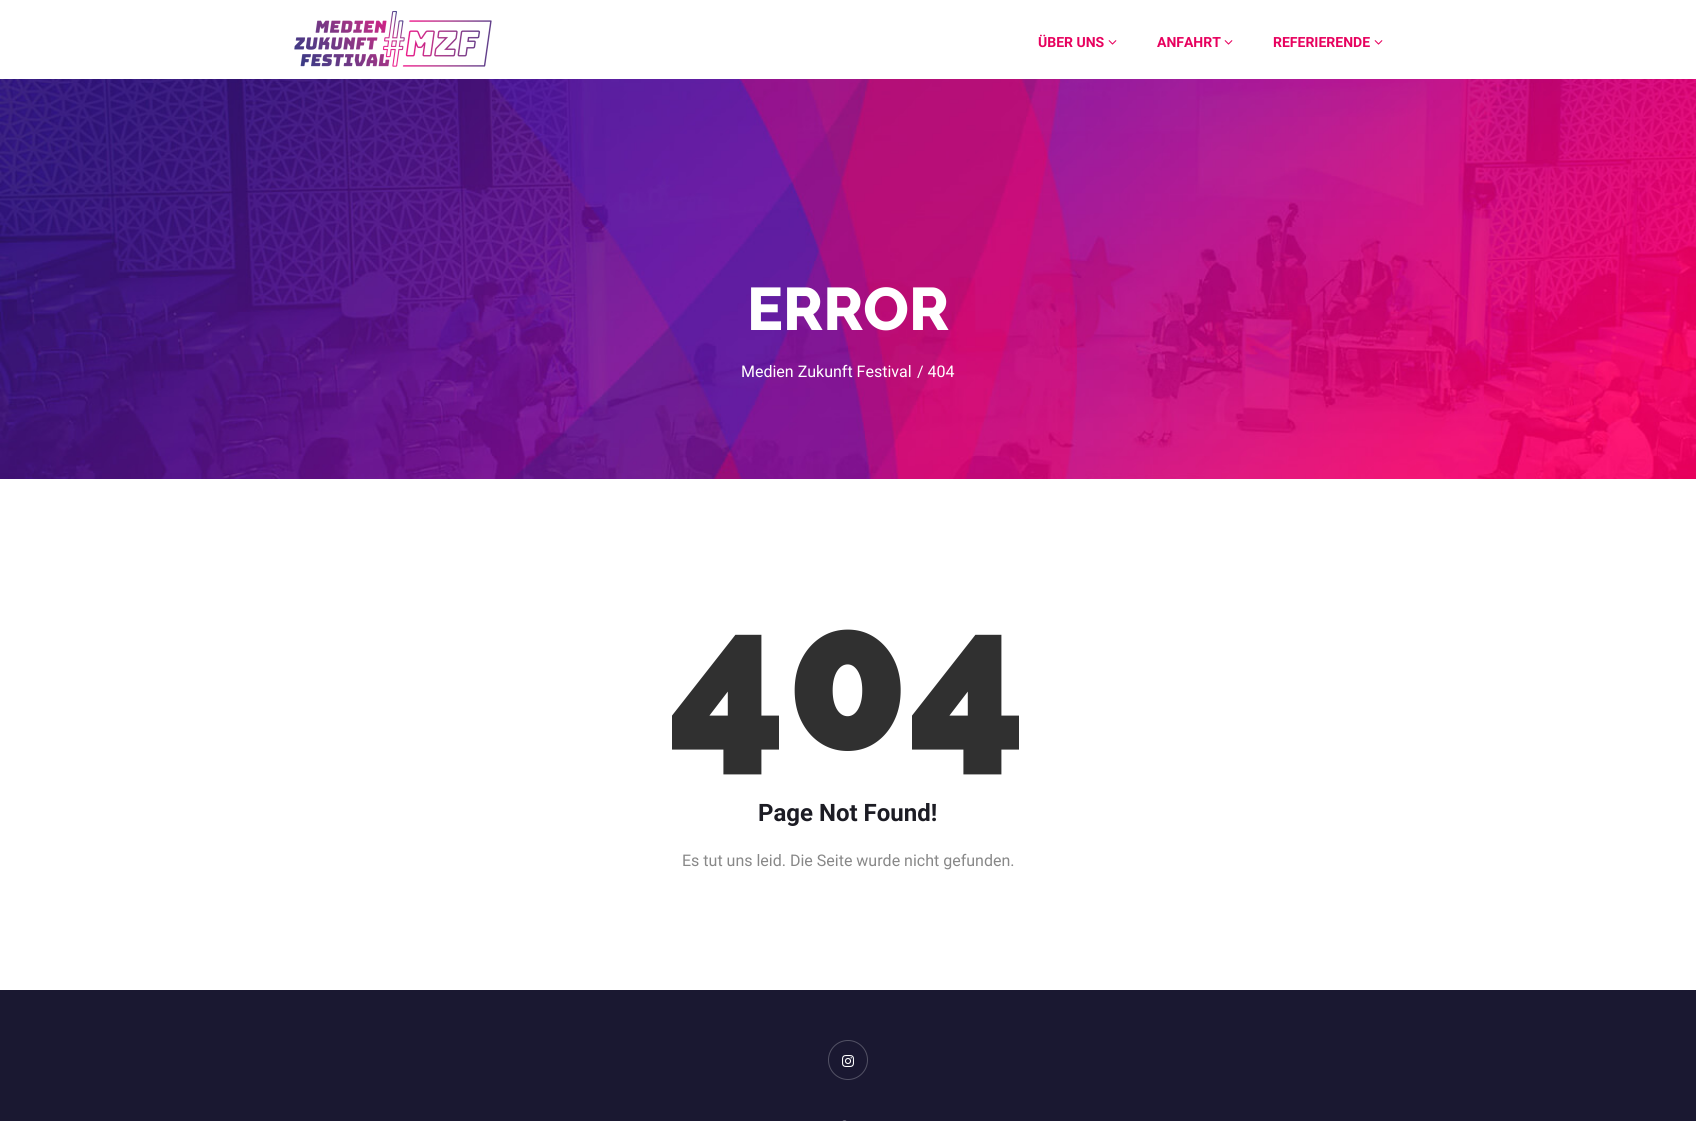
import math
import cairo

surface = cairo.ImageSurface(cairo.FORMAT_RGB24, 1696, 1121)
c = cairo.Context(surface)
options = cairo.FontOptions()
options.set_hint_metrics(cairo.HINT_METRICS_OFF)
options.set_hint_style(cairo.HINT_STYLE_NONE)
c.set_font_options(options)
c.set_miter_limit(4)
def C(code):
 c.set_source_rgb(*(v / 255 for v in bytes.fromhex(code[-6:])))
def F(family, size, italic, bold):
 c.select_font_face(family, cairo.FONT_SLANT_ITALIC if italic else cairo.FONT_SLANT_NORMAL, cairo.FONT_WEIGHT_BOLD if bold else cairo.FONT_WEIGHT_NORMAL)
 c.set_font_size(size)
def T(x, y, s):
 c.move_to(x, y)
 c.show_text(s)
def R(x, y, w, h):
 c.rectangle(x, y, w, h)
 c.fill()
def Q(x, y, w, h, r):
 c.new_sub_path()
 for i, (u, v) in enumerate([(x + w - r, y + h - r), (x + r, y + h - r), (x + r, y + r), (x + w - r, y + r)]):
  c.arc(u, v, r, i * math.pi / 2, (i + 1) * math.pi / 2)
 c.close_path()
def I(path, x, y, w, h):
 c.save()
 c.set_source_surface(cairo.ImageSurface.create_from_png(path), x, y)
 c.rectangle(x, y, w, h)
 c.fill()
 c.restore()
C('ffffff')
c.paint()
I('1.png',294,10,198,57)
F('Roboto',14,0,1)
C('e7015e')
T(1038,47,'ÜBER UNS')
I('2.png',1108,40,9,5)
T(1157,47,'ANFAHRT')
I('2.png',1224,40,9,5)
T(1273,47,'REFERIERENDE')
I('2.png',1374,40,9,5)
I('3.png',0,79,1696,400)
F('Raleway ExtraBold',60,0,0)
C('ffffff')
T(747,330,'ERROR')
F('Roboto',16,0,0)
T(741,377,'Medien Zukunft Festival')
T(917,377,'/ 404')
F('Raleway Black',200,0,0)
C('303030')
T(669,749,'404')
F('Roboto',24,0,1)
C('1c1c24')
T(758,821,'Page Not Found!')
F('Roboto',16,0,0)
C('888888')
T(682,866,'Es tut uns leid. Die Seite wurde nicht gefunden.')
C('1a1831')
R(0,990,1696,131)
c.new_path()
c.arc(848,1060,19.5,0,2 * math.pi)
C('525164')
c.set_line_width(1)
c.stroke()
I('4.png',842,1055,12,12)
C('5f5e6f')
Q(842,1120,5,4,2.5)
c.fill()
surface.write_to_png('o.png')
